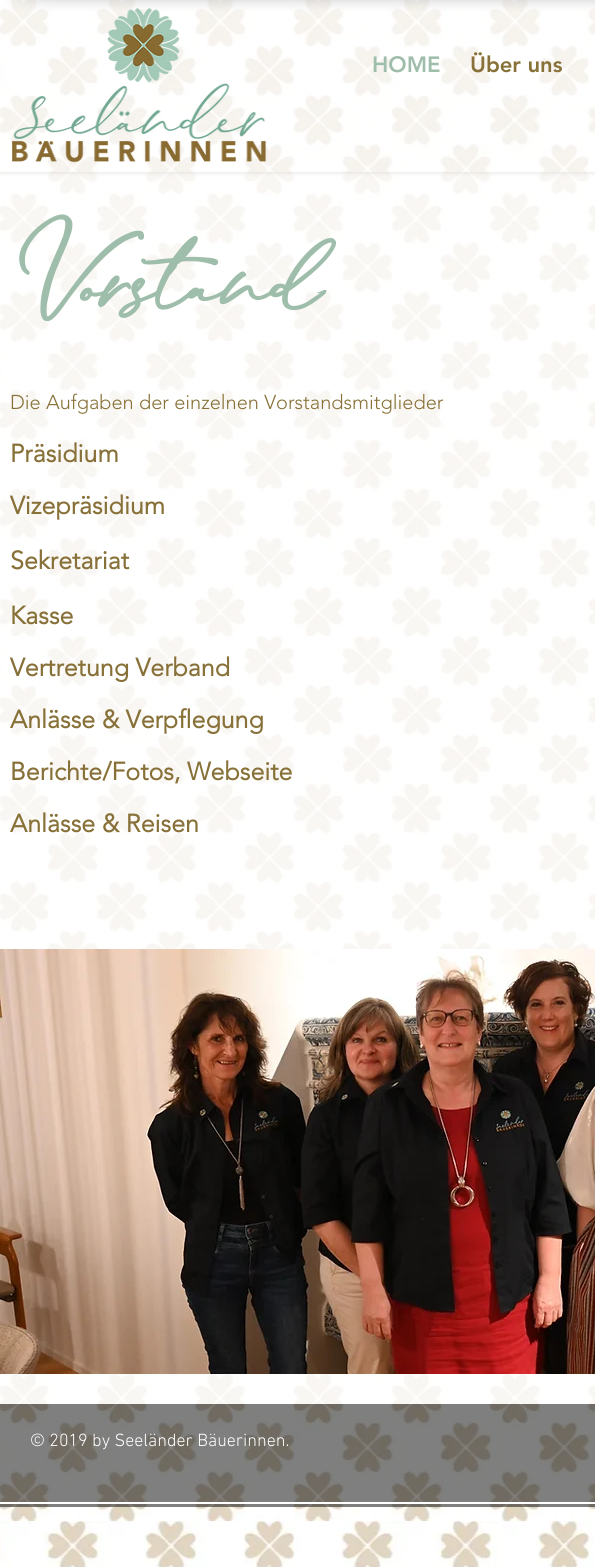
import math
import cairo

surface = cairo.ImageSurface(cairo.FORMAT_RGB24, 595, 1567)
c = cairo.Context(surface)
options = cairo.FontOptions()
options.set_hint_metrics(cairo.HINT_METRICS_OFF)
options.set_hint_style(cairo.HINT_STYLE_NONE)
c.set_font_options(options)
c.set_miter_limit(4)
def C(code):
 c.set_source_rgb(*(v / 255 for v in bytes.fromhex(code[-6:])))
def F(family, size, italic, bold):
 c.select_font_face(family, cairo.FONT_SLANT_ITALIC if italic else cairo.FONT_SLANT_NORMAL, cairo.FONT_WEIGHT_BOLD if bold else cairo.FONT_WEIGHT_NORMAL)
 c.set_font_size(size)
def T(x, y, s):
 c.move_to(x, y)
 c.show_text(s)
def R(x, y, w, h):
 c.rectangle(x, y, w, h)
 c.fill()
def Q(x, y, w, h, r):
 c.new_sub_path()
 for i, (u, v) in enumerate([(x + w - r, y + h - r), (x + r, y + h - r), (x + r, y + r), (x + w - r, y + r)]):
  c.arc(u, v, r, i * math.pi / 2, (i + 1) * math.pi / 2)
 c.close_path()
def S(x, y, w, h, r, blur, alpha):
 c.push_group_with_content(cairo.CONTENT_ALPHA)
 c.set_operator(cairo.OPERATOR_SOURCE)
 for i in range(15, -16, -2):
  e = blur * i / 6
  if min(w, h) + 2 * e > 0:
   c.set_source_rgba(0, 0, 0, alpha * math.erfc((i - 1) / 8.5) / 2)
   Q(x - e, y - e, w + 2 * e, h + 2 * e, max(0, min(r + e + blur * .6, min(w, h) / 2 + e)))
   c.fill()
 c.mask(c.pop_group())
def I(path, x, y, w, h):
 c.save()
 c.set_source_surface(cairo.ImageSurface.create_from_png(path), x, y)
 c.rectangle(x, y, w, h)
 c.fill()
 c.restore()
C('ffffff')
c.paint()
I('1.png',0,0,595,1567)
I('2.png',3,0,97,11)
I('3.png',100,0,495,11)
c.save()
c.rectangle(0,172,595,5)
c.clip()
C('000000')
S(0,0,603,172,0,2.5,.7)
c.restore()
c.set_source_rgba(1,1,1,0.72)
R(0,0,595,172)
I('4.png',12,8,255,155)
F('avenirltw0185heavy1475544 Black',22,0,0)
C('9ebdaa')
T(372,72,'HOME')
C('887138')
T(470,72,'Über uns')
c.set_source_rgba(1,1,1,0.8)
R(0,172,595,1232)
F('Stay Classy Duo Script',103,0,1)
C('9ebdaa')
T(30,306,'Vorstand')
F('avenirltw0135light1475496 Light',20,0,0)
C('887138')
T(10,409,'Die Aufgaben der einzelnen Vorstandsmitglieder')
F('avenirltw0135light1475496',25,0,1)
T(10,462,'Präsidium')
T(10,514,'Vizepräsidium')
T(10,569,'Sekretariat')
T(10,624,'Kasse')
T(10,676,'Vertretung Verband')
T(10,728,'Anlässe & Verpflegung')
T(10,780,'Berichte/Fotos, Webseite')
T(10,832,'Anlässe & Reisen')
I('5.png',0,949,595,425)
c.set_source_rgba(0,0,0,0.5)
R(0,1404,595,103)
F('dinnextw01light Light',18,0,0)
C('ffffff')
T(30,1446,'© 2019 by Seeländer Bäuerinnen.')
R(0,1502,595,2)
surface.write_to_png('o.png')
